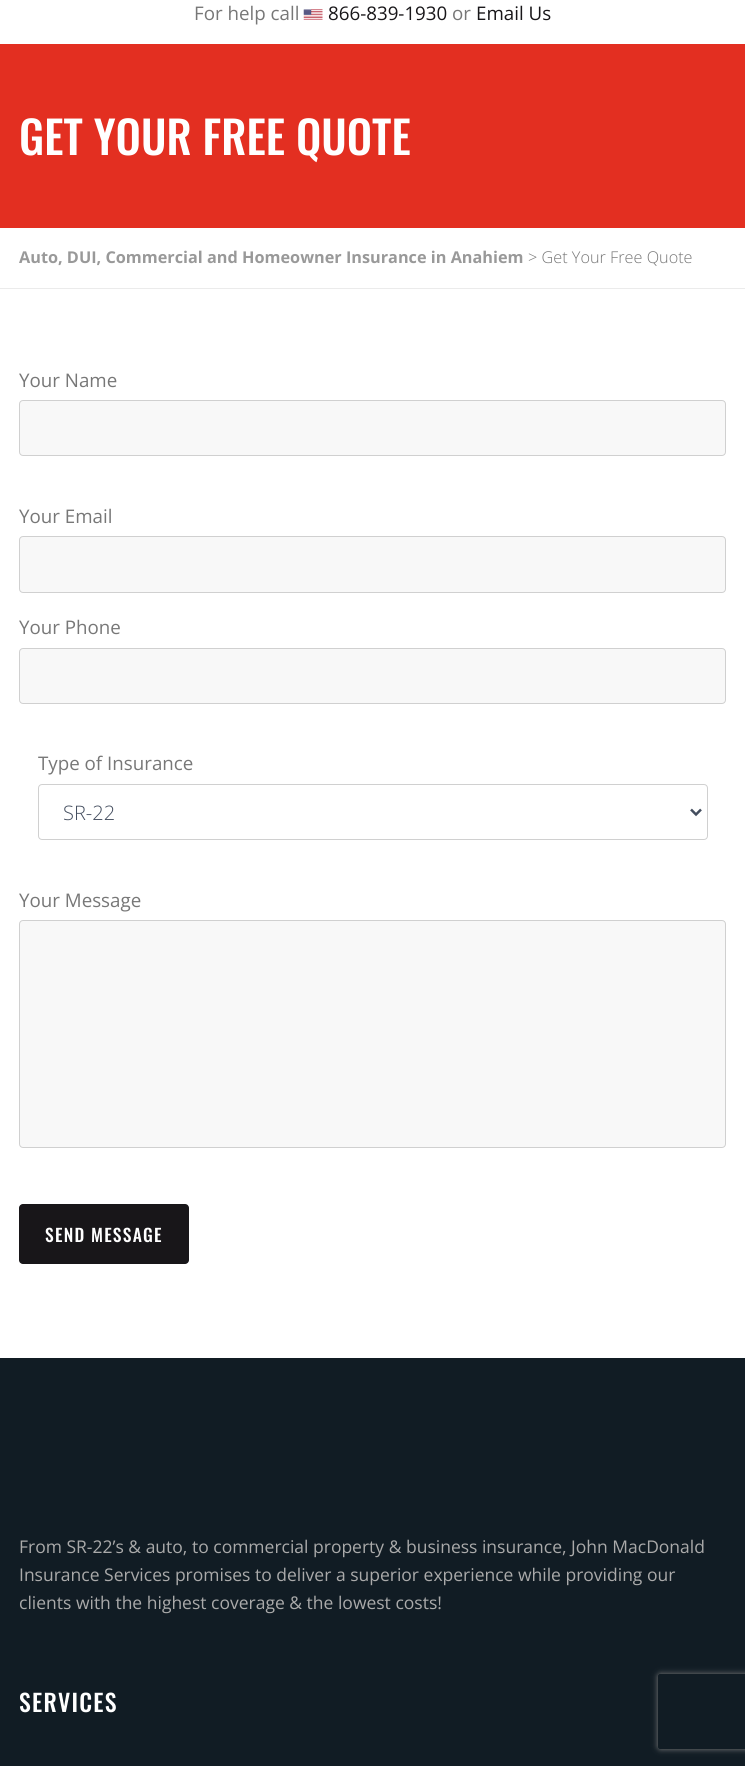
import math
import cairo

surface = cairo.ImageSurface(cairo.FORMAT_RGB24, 745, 1766)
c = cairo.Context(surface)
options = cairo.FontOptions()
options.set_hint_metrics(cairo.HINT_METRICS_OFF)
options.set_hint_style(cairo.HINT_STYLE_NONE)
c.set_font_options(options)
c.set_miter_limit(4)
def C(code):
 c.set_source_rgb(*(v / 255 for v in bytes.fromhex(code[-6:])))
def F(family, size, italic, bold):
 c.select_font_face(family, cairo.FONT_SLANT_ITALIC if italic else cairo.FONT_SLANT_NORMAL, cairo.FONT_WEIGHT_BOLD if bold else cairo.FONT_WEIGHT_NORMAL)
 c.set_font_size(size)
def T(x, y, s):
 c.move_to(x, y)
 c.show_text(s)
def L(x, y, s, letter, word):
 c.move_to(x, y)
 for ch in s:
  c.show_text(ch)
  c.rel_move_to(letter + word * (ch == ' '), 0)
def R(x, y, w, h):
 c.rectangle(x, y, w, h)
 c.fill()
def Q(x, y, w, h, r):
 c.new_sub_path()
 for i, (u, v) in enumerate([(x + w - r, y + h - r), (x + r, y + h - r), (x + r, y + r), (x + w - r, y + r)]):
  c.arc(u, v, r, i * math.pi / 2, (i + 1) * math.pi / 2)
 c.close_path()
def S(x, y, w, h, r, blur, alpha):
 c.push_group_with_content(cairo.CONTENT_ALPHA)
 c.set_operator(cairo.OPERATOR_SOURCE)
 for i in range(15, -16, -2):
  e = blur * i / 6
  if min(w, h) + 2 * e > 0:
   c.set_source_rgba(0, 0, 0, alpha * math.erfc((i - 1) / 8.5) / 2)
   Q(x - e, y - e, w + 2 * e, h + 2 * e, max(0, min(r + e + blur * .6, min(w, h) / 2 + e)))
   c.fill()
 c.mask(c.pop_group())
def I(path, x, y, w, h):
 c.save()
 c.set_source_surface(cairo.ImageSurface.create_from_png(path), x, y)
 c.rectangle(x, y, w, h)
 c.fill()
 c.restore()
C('ffffff')
c.paint()
F('Open Sans',18.75,0,0)
C('777777')
T(194,20,'For help call')
I('1.png',303,9,20,11)
C('181619')
T(328,20,'866-839-1930')
C('777777')
T(452,20,'or')
C('181619')
T(476,20,'Email Us')
C('e32f21')
R(0,44,745,184)
F('Oswald Medium',45,0,0)
C('ffffff')
T(19,155,'GET YOUR FREE QUOTE')
C('ebebeb')
R(0,288,745,1)
F('Open Sans',16.25,0,1)
C('999999')
T(19,263,'Auto, DUI, Commercial and Homeowner Insurance in Anahiem')
F('Open Sans Light',16.25,0,0)
C('777777')
T(528,263,'> Get Your Free Quote')
F('Open Sans',18.75,0,0)
T(19,387,'Your Name')
C('f8f8f8')
Q(19.5,400.5,706,55,3.5)
c.fill_preserve()
C('d0d0d0')
c.set_line_width(1)
c.stroke()
C('777777')
T(19,523,'Your Email')
C('f8f8f8')
Q(19.5,536.5,706,56,3.5)
c.fill_preserve()
C('d0d0d0')
c.stroke()
C('777777')
T(19,634,'Your Phone')
C('f8f8f8')
Q(19.5,648.5,706,55,3.5)
c.fill_preserve()
C('d0d0d0')
c.stroke()
C('777777')
T(38,770,'Type of Insurance')
Q(38.5,784.5,669,55,3.5)
C('d0d0d0')
c.stroke()
c.new_path()
c.move_to(691,809.5)
c.line_to(696,814.5)
c.line_to(701,809.5)
C('434d5e')
c.set_line_width(2.5)
c.stroke()
F('Open Sans Light',20,0,0)
T(63,820,'SR-22')
F('Open Sans',18.75,0,0)
C('777777')
T(19,907,'Your Message')
C('f8f8f8')
Q(19.5,920.5,706,227,3.5)
c.fill_preserve()
C('d0d0d0')
c.set_line_width(1)
c.stroke()
C('181619')
Q(19,1204,170,60,4)
c.fill()
F('Oswald Medium',17.5,0,0)
C('ffffff')
L(45,1242,'SEND MESSAGE',1.25,0)
C('111c24')
R(0,1358,745,408)
F('Open Sans',17.5,0,0)
C('aaaaaa')
T(19,1553,'From SR-22’s & auto, to commercial property & business insurance, John MacDonald')
T(19,1581,'Insurance Services promises to deliver a superior experience while providing our')
T(19,1609,'clients with the highest coverage & the lowest costs!')
F('Oswald Medium',23.75,0,0)
C('ffffff')
L(19,1712,'SERVICES',1.25,0)
c.save()
c.set_fill_rule(cairo.FILL_RULE_EVEN_ODD)
c.new_path()
c.move_to(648,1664)
c.line_to(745,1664)
c.line_to(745,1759)
c.line_to(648,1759)
c.close_path()
c.move_to(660.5,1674)
c.line_to(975.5,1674)
c.curve_to(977,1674,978,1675,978,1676.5)
c.line_to(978,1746.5)
c.curve_to(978,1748,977,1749,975.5,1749)
c.line_to(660.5,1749)
c.curve_to(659,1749,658,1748,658,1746.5)
c.line_to(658,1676.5)
c.curve_to(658,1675,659,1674,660.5,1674)
c.close_path()
c.clip()
C('808080')
S(658,1674,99,75,2.5,3,1)
c.restore()
surface.write_to_png('o.png')
